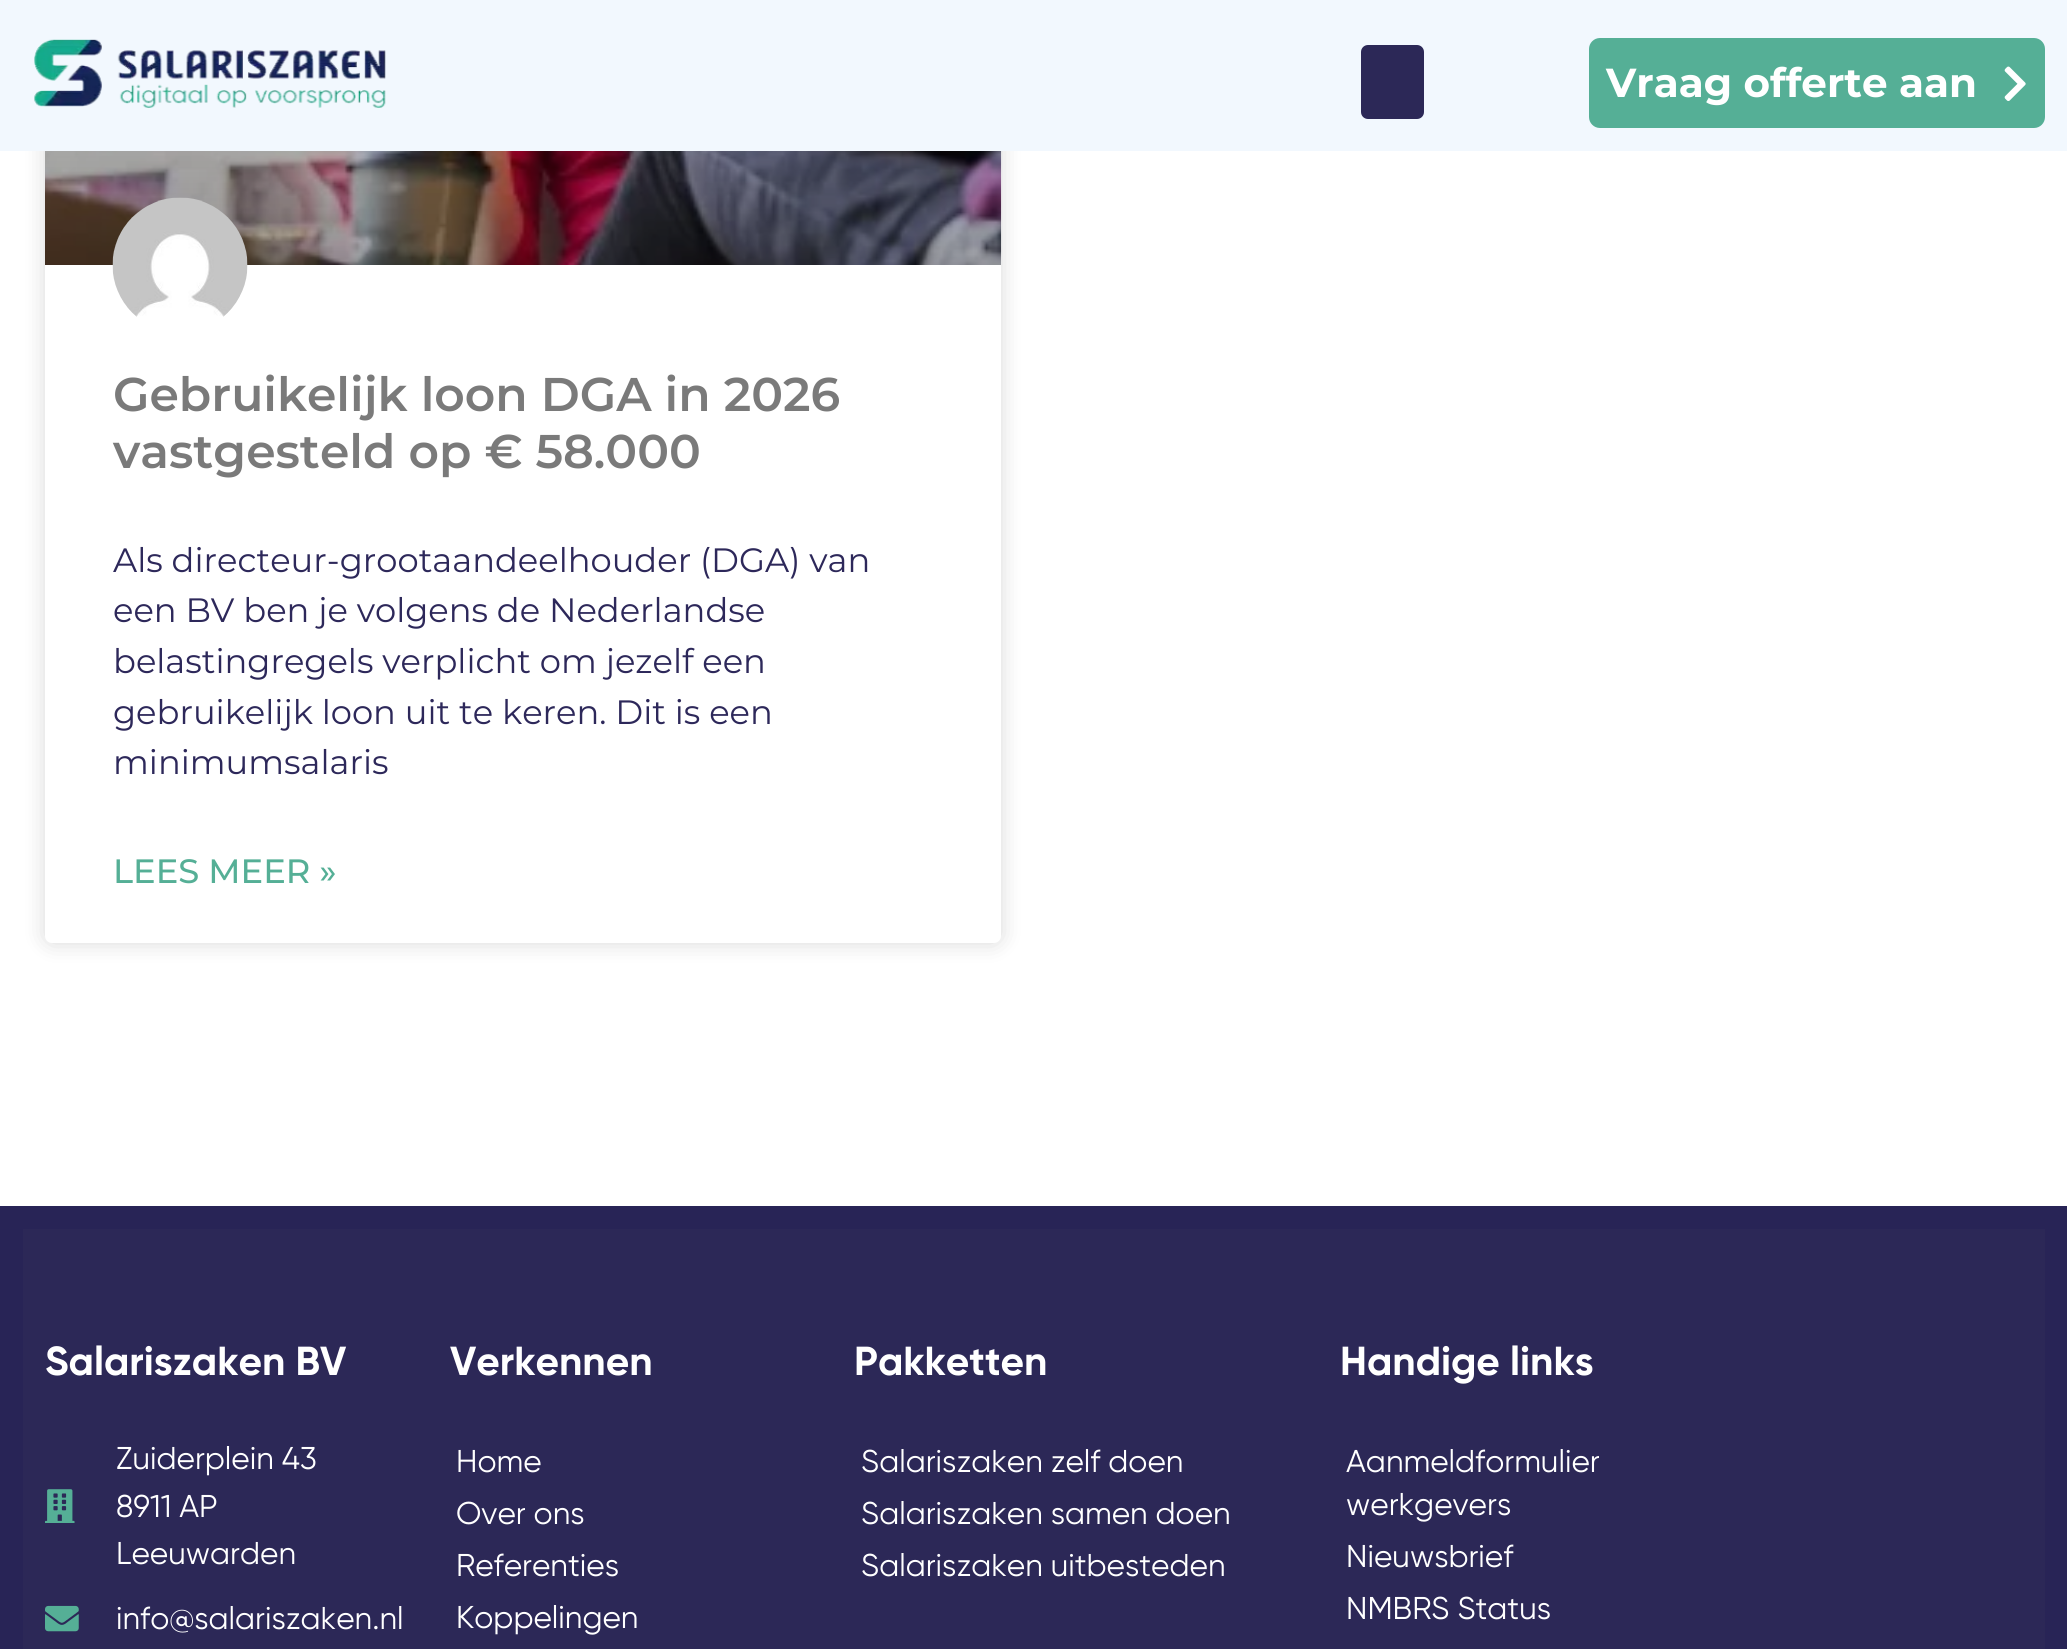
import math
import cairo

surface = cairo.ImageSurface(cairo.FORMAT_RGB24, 2067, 1649)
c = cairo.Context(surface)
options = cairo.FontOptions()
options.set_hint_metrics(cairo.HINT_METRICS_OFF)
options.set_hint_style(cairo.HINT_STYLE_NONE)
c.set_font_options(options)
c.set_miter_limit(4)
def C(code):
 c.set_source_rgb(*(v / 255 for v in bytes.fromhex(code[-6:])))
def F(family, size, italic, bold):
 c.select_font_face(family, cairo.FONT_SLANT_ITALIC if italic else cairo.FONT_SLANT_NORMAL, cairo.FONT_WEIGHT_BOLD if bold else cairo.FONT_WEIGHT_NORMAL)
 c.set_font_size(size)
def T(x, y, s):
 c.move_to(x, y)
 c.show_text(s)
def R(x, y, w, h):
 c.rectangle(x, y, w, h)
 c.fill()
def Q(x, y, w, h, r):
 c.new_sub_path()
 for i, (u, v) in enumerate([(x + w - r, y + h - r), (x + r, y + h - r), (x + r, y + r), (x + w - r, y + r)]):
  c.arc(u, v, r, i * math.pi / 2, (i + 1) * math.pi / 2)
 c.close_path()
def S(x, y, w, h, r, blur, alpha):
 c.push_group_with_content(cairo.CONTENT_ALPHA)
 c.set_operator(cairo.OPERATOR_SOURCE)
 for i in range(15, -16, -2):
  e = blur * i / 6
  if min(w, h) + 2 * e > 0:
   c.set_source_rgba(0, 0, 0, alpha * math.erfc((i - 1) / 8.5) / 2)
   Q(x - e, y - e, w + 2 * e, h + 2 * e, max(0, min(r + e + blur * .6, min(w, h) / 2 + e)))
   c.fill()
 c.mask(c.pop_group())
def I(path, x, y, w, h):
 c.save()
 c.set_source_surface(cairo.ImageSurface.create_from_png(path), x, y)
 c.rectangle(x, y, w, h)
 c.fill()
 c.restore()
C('ffffff')
c.paint()
C('000000')
S(45,-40,956,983,7,11,.15)
C('ffffff')
Q(45,-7,956,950,7)
c.fill()
C('f2f8fe')
R(0,0,2067,151)
I('1.png',34,39,352,69)
C('2c2857')
Q(1361,45,63,74,7)
c.fill()
C('55af96')
Q(1589,38,456,90,11)
c.fill()
F('Montserrat',40.5,0,1)
C('ffffff')
T(1606,97,'Vraag offerte aan')
I('2.png',2004,66,22,35)
I('3.png',45,151,957,114)
I('4.png',112,197,136,120)
F('Montserrat SemiBold',47.25,0,0)
C('7a7a7a')
T(113,411,'Gebruikelijk loon DGA in 2026')
T(113,468,'vastgesteld op € 58.000')
F('Montserrat',33.75,0,0)
C('2d285a')
T(113,572,'Als directeur-grootaandeelhouder (DGA) van')
T(113,622,'een BV ben je volgens de Nederlandse')
T(113,673,'belastingregels verplicht om jezelf een')
T(113,724,'gebruikelijk loon uit te keren. Dit is een')
T(113,774,'minimumsalaris')
F('Montserrat Medium',33.75,0,0)
C('55af96')
T(113,883,'LEES MEER »')
C('282456')
R(0,1206,2067,443)
C('2c2857')
R(23,1229,2022,420)
F('Gilroy',40.5,0,1)
C('ffffff')
T(45,1375,'Salariszaken BV')
I('5.png',45,1489,30,34)
F('Gilroy',31.5,0,0)
T(116,1469,'Zuiderplein 43')
T(116,1517,'8911 AP')
T(116,1564,'Leeuwarden')
I('6.png',45,1605,34,27)
T(116,1629,'info@salariszaken.nl')
F('Gilroy',40.5,0,1)
T(450,1375,'Verkennen')
F('Gilroy',31.5,0,0)
T(456,1472,'Home')
T(456,1524,'Over ons')
T(456,1576,'Referenties')
T(456,1628,'Koppelingen')
F('Gilroy',40.5,0,1)
T(854,1375,'Pakketten')
F('Gilroy',31.5,0,0)
T(861,1472,'Salariszaken zelf doen')
T(861,1524,'Salariszaken samen doen')
T(861,1576,'Salariszaken uitbesteden')
F('Gilroy',40.5,0,1)
T(1340,1375,'Handige links')
F('Gilroy',31.5,0,0)
T(1346,1472,'Aanmeldformulier')
T(1346,1515,'werkgevers')
T(1346,1567,'Nieuwsbrief')
T(1346,1619,'NMBRS Status')
surface.write_to_png('o.png')
